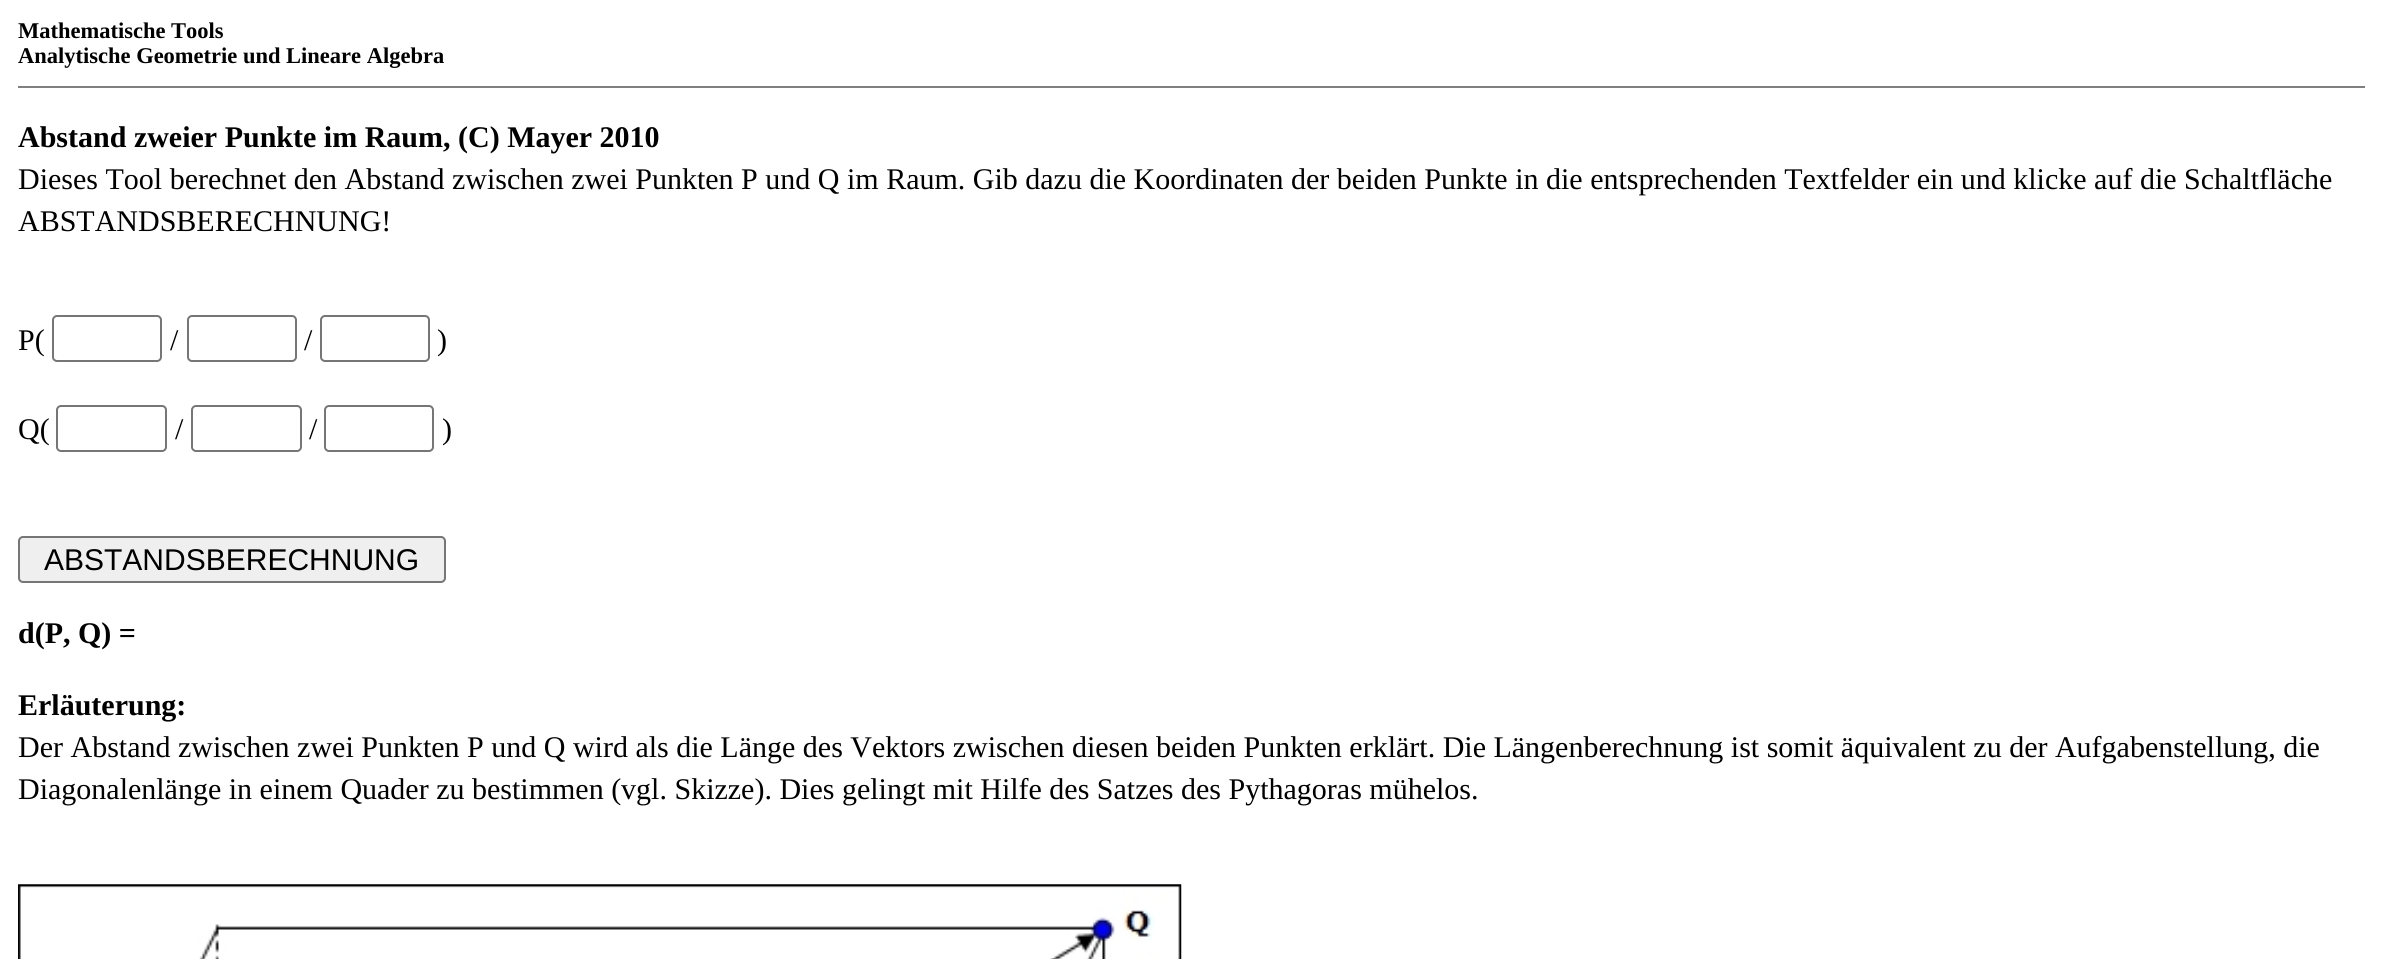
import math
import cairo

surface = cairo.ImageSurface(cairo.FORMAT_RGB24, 2382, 959)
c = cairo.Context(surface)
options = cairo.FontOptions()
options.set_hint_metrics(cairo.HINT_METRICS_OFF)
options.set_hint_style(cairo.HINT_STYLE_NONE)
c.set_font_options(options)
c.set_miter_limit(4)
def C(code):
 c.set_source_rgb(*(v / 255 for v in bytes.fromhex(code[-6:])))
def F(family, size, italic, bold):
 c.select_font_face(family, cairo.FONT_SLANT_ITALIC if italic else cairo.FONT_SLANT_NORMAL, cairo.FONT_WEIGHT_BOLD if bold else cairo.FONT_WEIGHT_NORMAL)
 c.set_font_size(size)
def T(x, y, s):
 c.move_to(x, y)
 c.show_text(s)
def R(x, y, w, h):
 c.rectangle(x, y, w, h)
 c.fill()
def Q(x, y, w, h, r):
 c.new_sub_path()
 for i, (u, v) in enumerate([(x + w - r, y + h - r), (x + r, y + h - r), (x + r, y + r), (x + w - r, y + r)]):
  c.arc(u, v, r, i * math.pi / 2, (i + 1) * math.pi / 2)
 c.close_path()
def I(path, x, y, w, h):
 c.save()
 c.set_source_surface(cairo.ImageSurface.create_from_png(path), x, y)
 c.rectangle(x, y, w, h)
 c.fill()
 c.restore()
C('ffffff')
c.paint()
F('Liberation Serif',22.5,0,1)
C('000000')
T(18,38,'Mathematische Tools')
T(18,63,'Analytische Geometrie und Lineare Algebra')
C('808080')
R(18,86,2347,2)
F('Liberation Serif',30,0,1)
C('000000')
T(18,147,'Abstand zweier Punkte im Raum, (C) Mayer 2010')
F('Liberation Serif',30,0,0)
T(18,189,'Dieses Tool berechnet den Abstand zwischen zwei Punkten P und Q im Raum. Gib dazu die Koordinaten der beiden Punkte in die entsprechenden Textfelder ein und klicke auf die Schaltfläche')
T(18,231,'ABSTANDSBERECHNUNG!')
T(18,350,'P(')
Q(53,316,108,45,4)
C('767676')
c.stroke()
C('000000')
T(170,350,'/')
Q(188,316,108,45,4)
C('767676')
c.stroke()
C('000000')
T(304,350,'/')
Q(321,316,108,45,4)
C('767676')
c.stroke()
C('000000')
T(437,350,')')
T(18,439,'Q(')
Q(57,406,109,45,4)
C('767676')
c.stroke()
C('000000')
T(175,439,'/')
Q(192,406,109,45,4)
C('767676')
c.stroke()
C('000000')
T(309,439,'/')
Q(325,406,108,45,4)
C('767676')
c.stroke()
C('000000')
T(442,439,')')
C('efefef')
Q(19,537,426,45,4)
c.fill_preserve()
C('767676')
c.stroke()
F('Liberation Sans',30,0,0)
C('000000')
T(44,570,'ABSTANDSBERECHNUNG')
F('Liberation Serif',30,0,1)
T(18,643,'d(P, Q) =')
T(18,715,'Erläuterung:')
F('Liberation Serif',30,0,0)
T(18,757,'Der Abstand zwischen zwei Punkten P und Q wird als die Länge des Vektors zwischen diesen beiden Punkten erklärt. Die Längenberechnung ist somit äquivalent zu der Aufgabenstellung, die')
T(18,799,'Diagonalenlänge in einem Quader zu bestimmen (vgl. Skizze). Dies gelingt mit Hilfe des Satzes des Pythagoras mühelos.')
I('1.png',18,884,1164,75)
surface.write_to_png('o.png')
